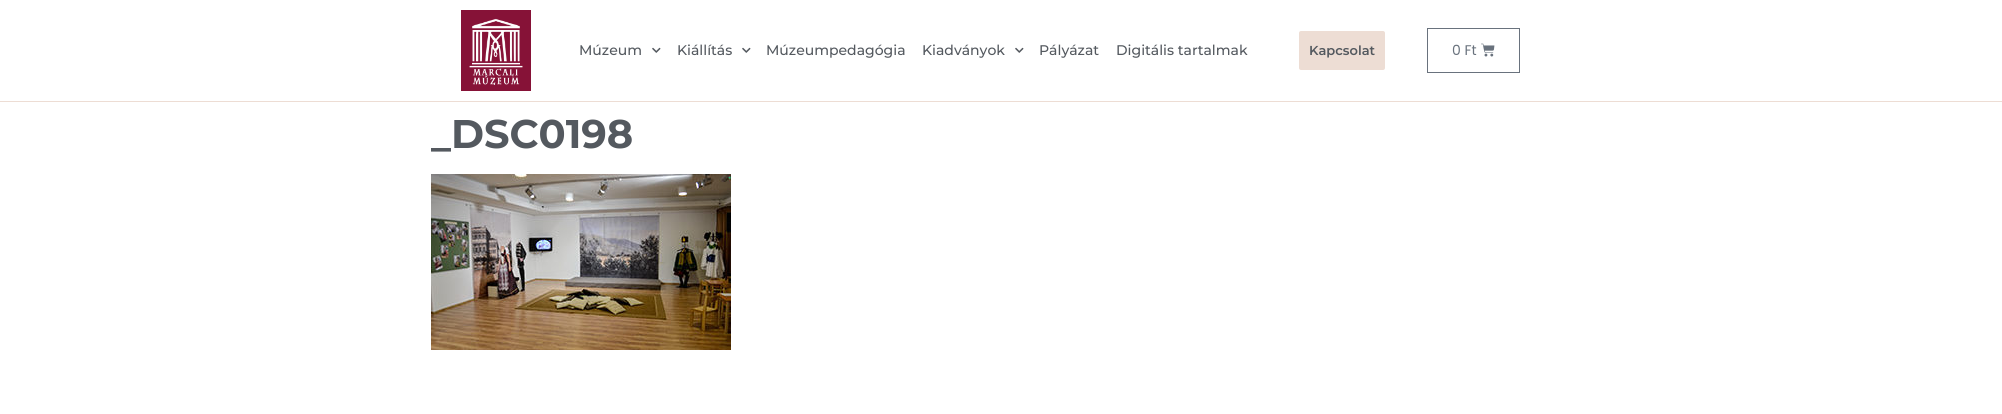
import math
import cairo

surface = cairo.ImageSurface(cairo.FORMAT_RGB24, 2002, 414)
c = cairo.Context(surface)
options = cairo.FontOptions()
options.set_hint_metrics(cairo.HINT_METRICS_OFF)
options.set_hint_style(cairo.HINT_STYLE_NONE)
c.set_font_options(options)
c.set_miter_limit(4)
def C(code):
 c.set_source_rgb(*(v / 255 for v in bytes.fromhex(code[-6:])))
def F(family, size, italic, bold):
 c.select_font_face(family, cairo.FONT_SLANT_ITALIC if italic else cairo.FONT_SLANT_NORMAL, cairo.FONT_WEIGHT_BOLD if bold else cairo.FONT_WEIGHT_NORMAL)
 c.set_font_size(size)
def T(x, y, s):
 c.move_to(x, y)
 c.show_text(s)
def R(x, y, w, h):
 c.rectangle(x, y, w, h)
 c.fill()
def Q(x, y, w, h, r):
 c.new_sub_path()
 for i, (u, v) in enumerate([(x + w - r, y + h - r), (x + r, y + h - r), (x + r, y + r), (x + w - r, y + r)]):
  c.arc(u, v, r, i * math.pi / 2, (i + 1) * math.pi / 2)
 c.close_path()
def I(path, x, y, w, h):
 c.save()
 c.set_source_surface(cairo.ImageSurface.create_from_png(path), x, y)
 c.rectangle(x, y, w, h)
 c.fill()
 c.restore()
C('ffffff')
c.paint()
C('edddd4')
R(0,101,2002,1)
I('1.png',461,10,70,81)
F('Montserrat Medium',14,0,0)
C('54595f')
T(579,55,'Múzeum')
I('2.png',652,47,9,6)
T(677,55,'Kiállítás')
I('2.png',742,47,9,6)
T(766,55,'Múzeumpedagógia')
T(922,55,'Kiadványok')
I('2.png',1015,47,9,6)
T(1039,55,'Pályázat')
T(1116,55,'Digitális tartalmak')
C('edddd4')
Q(1299,31,86,39,2)
c.fill()
F('Montserrat SemiBold',13,0,0)
C('54595f')
T(1309,55,'Kapcsolat')
c.rectangle(1427.5,28.5,92,44)
C('69727d')
c.set_line_width(1)
c.stroke()
F('Poppins',14,0,0)
T(1452,55,'0 Ft')
I('3.png',1481,43,14,14)
F('Montserrat',40,0,1)
C('54595f')
T(431,148,'_DSC0198')
I('4.png',431,174,300,176)
surface.write_to_png('o.png')
